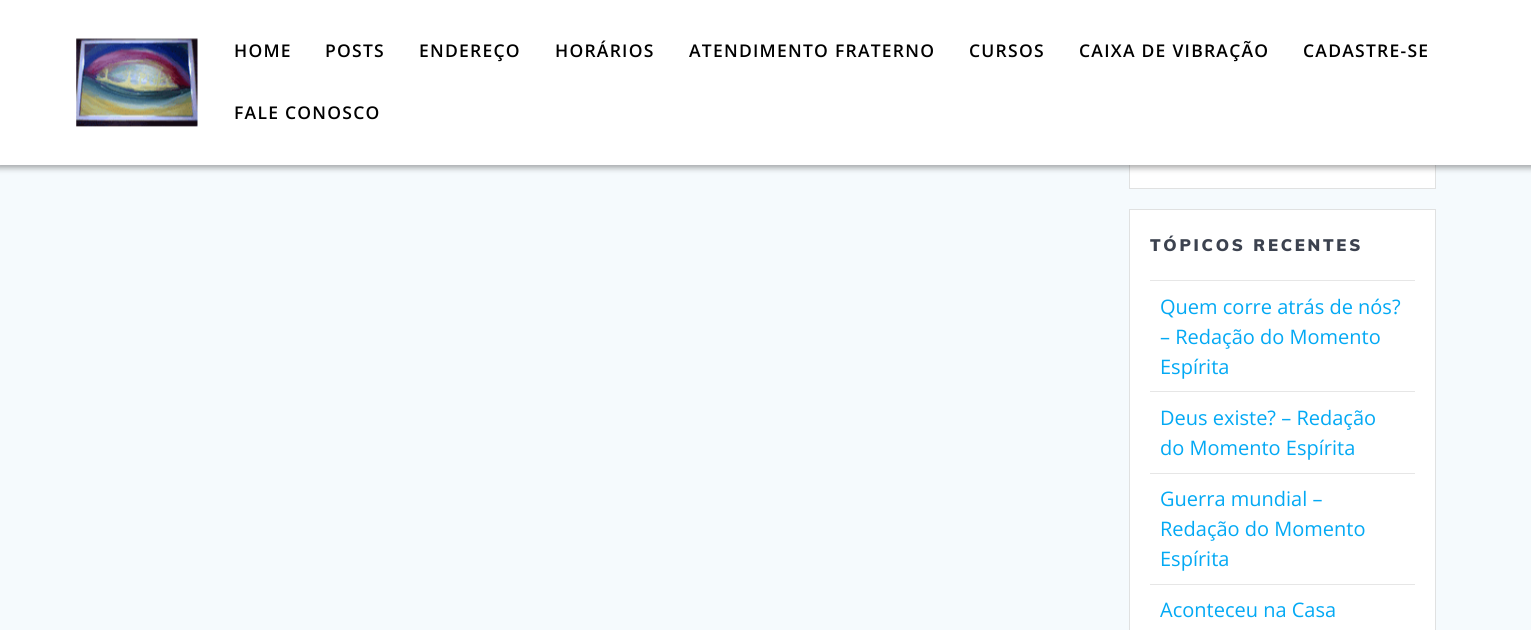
import math
import cairo

surface = cairo.ImageSurface(cairo.FORMAT_RGB24, 1531, 630)
c = cairo.Context(surface)
options = cairo.FontOptions()
options.set_hint_metrics(cairo.HINT_METRICS_OFF)
options.set_hint_style(cairo.HINT_STYLE_NONE)
c.set_font_options(options)
c.set_miter_limit(4)
def C(code):
 c.set_source_rgb(*(v / 255 for v in bytes.fromhex(code[-6:])))
def F(family, size, italic, bold):
 c.select_font_face(family, cairo.FONT_SLANT_ITALIC if italic else cairo.FONT_SLANT_NORMAL, cairo.FONT_WEIGHT_BOLD if bold else cairo.FONT_WEIGHT_NORMAL)
 c.set_font_size(size)
def T(x, y, s):
 c.move_to(x, y)
 c.show_text(s)
def L(x, y, s, letter, word):
 c.move_to(x, y)
 for ch in s:
  c.show_text(ch)
  c.rel_move_to(letter + word * (ch == ' '), 0)
def R(x, y, w, h):
 c.rectangle(x, y, w, h)
 c.fill()
def Q(x, y, w, h, r):
 c.new_sub_path()
 for i, (u, v) in enumerate([(x + w - r, y + h - r), (x + r, y + h - r), (x + r, y + r), (x + w - r, y + r)]):
  c.arc(u, v, r, i * math.pi / 2, (i + 1) * math.pi / 2)
 c.close_path()
def S(x, y, w, h, r, blur, alpha):
 c.push_group_with_content(cairo.CONTENT_ALPHA)
 c.set_operator(cairo.OPERATOR_SOURCE)
 for i in range(15, -16, -2):
  e = blur * i / 6
  if min(w, h) + 2 * e > 0:
   c.set_source_rgba(0, 0, 0, alpha * math.erfc((i - 1) / 8.5) / 2)
   Q(x - e, y - e, w + 2 * e, h + 2 * e, max(0, min(r + e + blur * .6, min(w, h) / 2 + e)))
   c.fill()
 c.mask(c.pop_group())
def I(path, x, y, w, h):
 c.save()
 c.set_source_surface(cairo.ImageSurface.create_from_png(path), x, y)
 c.rectangle(x, y, w, h)
 c.fill()
 c.restore()
C('f5fafd')
c.paint()
C('ffffff')
R(1130,165,305,23)
c.rectangle(1129.5,-.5,306,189)
C('e0e1e1')
c.set_line_width(1)
c.stroke()
C('000000')
S(-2,-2,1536,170,0,3,.33)
C('ffffff')
R(0,0,1531,165)
I('1.png',76,38,122,89)
F('Open Sans SemiBold',17.5,0,0)
C('000000')
L(234,57,'HOME',1.25,0)
L(325,57,'POSTS',1.25,0)
L(419,57,'ENDEREÇO',1.25,0)
L(555,57,'HORÁRIOS',1.25,0)
L(689,57,'ATENDIMENTO FRATERNO',1.25,0)
L(969,57,'CURSOS',1.25,0)
L(1079,57,'CAIXA DE VIBRAÇÃO',1.25,0)
L(1303,57,'CADASTRE-SE',1.25,0)
L(234,119,'FALE CONOSCO',1.25,0)
C('ffffff')
c.rectangle(1129.5,209.5,306,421)
c.fill_preserve()
C('e0e1e1')
c.stroke()
F('Muli Black',16.6,0,0)
C('3c424f')
L(1150,251,'TÓPICOS RECENTES',2.75,0)
C('e6e6e6')
R(1150,280,265,1)
F('Open Sans',20,0,0)
C('03a9f4')
T(1160,314,'Quem corre atrás de nós?')
T(1160,344,'– Redação do Momento')
T(1160,374,'Espírita')
C('e6e6e6')
R(1150,391,265,1)
C('03a9f4')
T(1160,425,'Deus existe? – Redação')
T(1160,455,'do Momento Espírita')
C('e6e6e6')
R(1150,473,265,1)
C('03a9f4')
T(1160,506,'Guerra mundial –')
T(1160,536,'Redação do Momento')
T(1160,566,'Espírita')
C('e6e6e6')
R(1150,584,265,1)
C('03a9f4')
T(1160,617,'Aconteceu na Casa')
surface.write_to_png('o.png')
